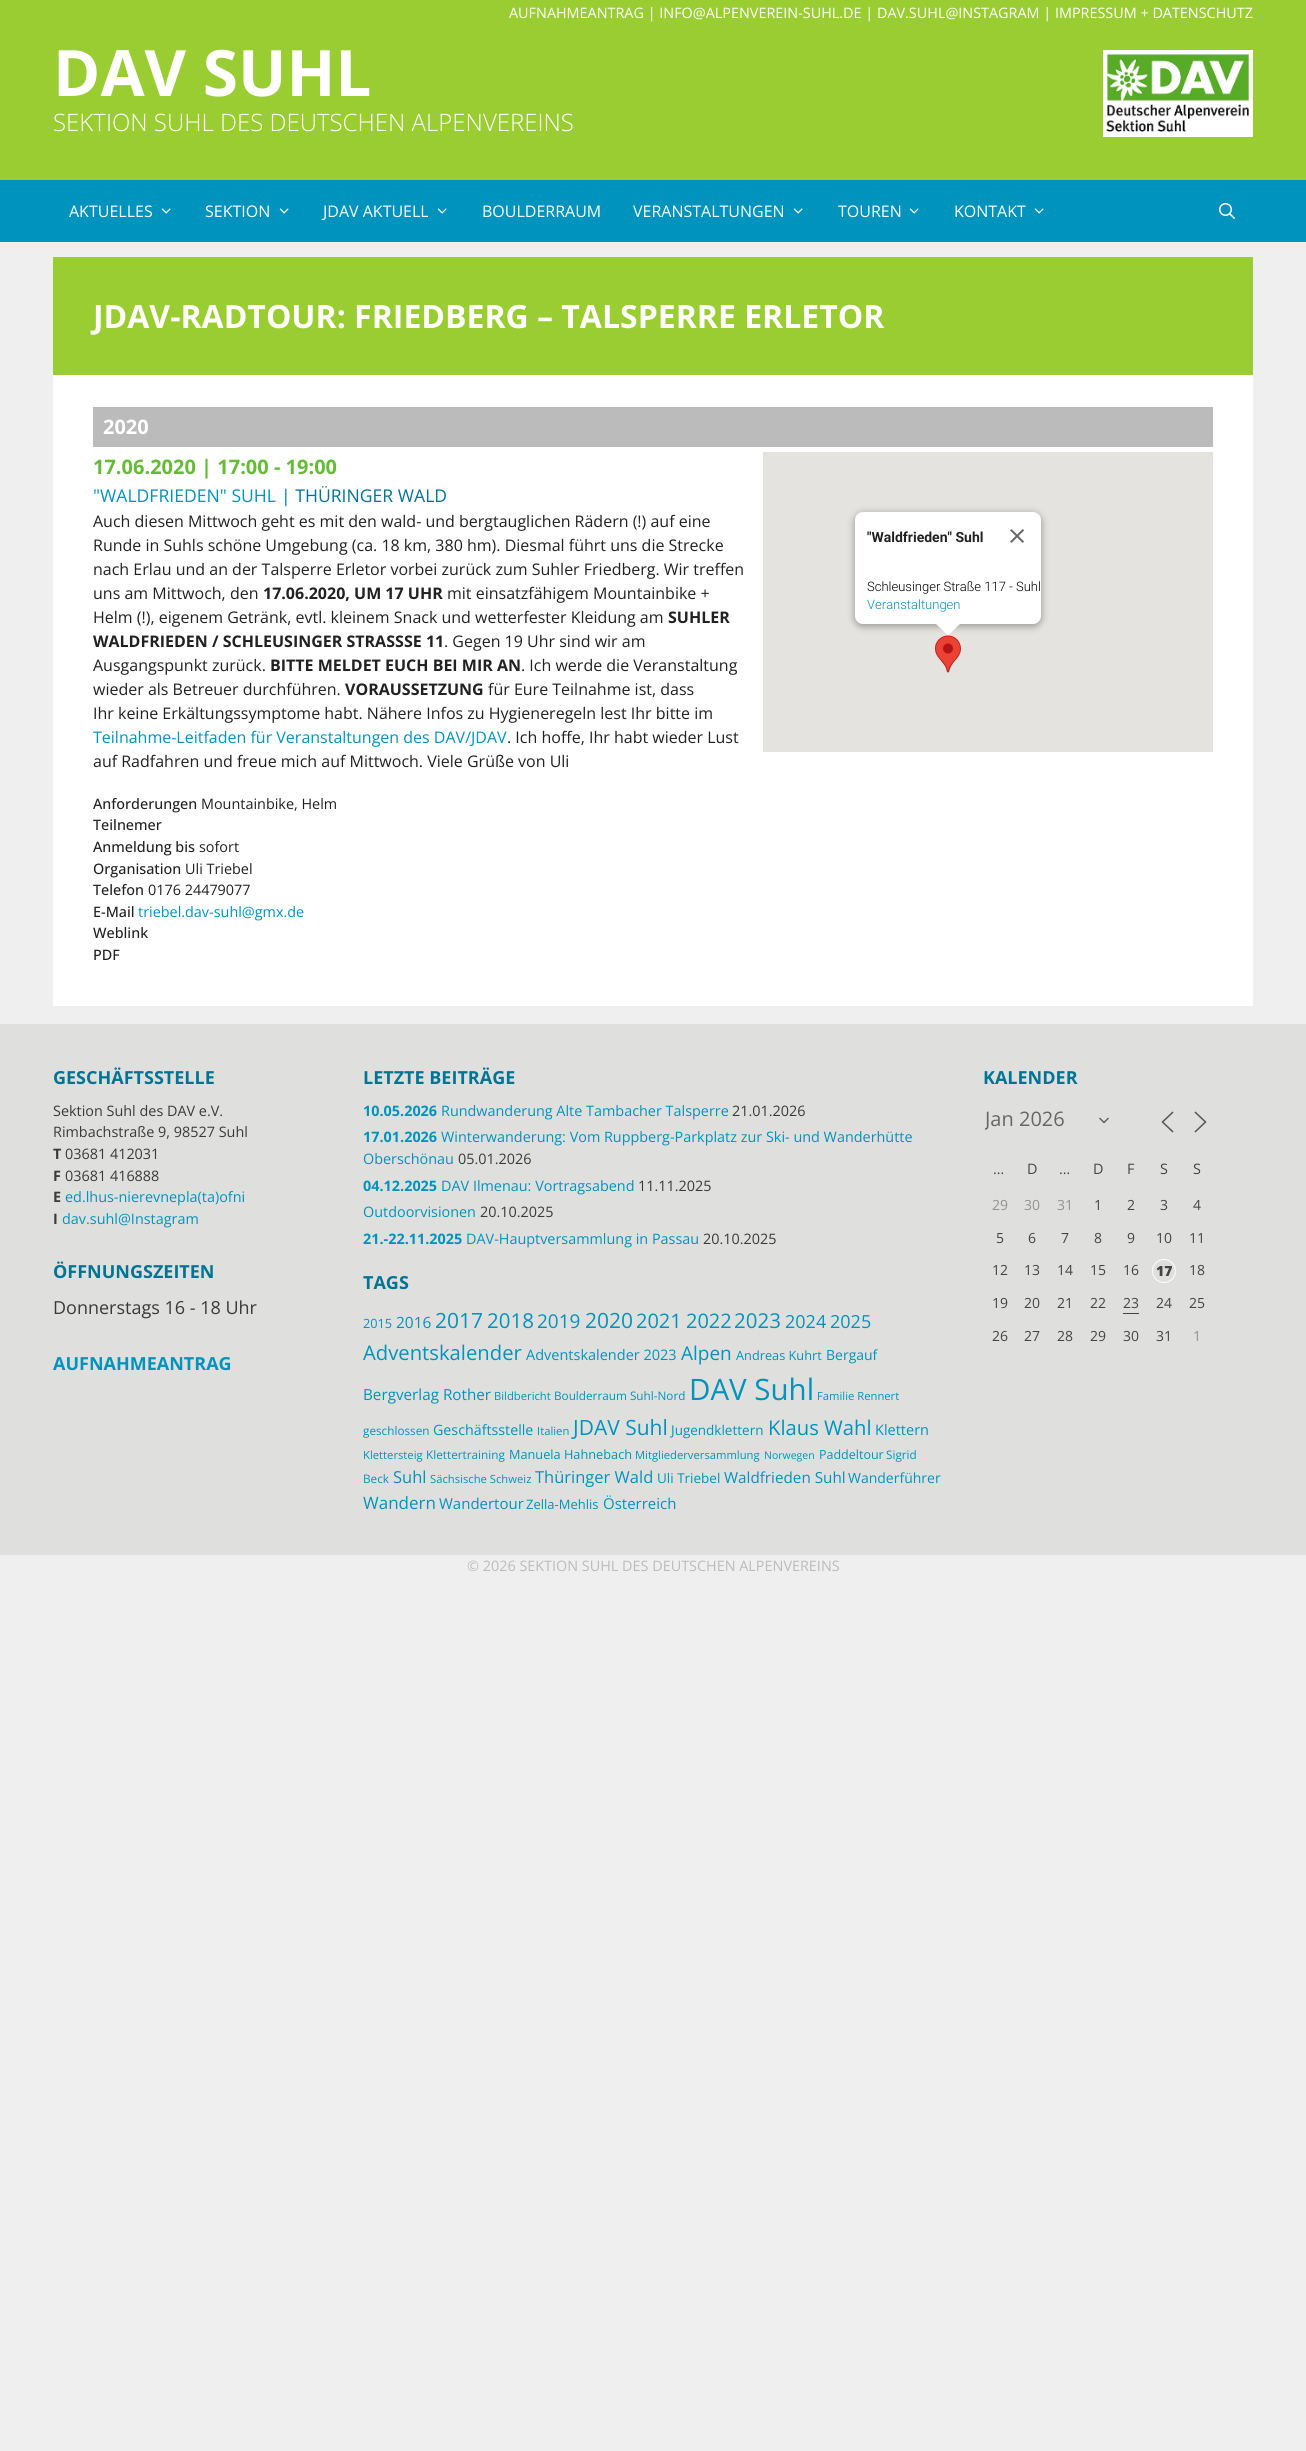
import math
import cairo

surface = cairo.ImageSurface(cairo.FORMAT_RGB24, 1306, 2451)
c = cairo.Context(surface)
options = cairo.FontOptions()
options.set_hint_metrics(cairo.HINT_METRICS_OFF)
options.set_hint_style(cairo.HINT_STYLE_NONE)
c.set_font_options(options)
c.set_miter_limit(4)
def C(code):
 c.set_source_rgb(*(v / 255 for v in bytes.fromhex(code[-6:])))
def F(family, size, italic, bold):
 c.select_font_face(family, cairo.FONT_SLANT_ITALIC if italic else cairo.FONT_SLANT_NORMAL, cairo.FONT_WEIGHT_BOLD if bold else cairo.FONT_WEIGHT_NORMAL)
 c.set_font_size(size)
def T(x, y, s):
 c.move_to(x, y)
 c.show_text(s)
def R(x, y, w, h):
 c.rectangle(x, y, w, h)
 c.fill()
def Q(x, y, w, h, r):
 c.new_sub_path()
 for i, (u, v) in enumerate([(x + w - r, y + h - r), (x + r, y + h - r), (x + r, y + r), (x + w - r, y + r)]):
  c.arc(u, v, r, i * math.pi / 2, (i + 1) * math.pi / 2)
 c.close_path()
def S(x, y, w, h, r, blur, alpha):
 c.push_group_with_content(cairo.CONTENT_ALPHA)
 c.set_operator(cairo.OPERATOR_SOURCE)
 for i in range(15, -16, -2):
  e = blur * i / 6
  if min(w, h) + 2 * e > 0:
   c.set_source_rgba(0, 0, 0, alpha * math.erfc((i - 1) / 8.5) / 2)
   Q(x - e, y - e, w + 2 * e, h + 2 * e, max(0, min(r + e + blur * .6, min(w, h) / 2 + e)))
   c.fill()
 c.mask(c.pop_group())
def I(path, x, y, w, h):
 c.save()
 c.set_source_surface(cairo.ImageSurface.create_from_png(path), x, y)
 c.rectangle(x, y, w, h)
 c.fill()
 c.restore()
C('efefef')
c.paint()
C('9acd32')
R(0,0,1306,180)
F('Open Sans',14.4,0,0)
C('ffffff')
T(509,18,'AUFNAHMEANTRAG | INFO@ALPENVEREIN-SUHL.DE | DAV.SUHL@INSTAGRAM | IMPRESSUM + DATENSCHUTZ')
F('Open Sans',64,0,1)
T(53,96,'DAV SUHL')
F('Open Sans Light',24,0,0)
T(53,131,'SEKTION SUHL DES DEUTSCHEN ALPENVEREINS')
I('1.png',1103,50,150,87)
C('0093be')
R(0,180,1306,62)
F('Open Sans',16,0,0)
C('ffffff')
T(69,217,'AKTUELLES')
I('2.png',161,208,10,6)
T(205,217,'SEKTION')
I('2.png',279,208,10,6)
T(323,217,'JDAV AKTUELL')
I('2.png',437,208,10,6)
T(482,217,'BOULDERRAUM')
T(633,217,'VERANSTALTUNGEN')
I('2.png',793,208,10,6)
T(838,217,'TOUREN')
I('2.png',909,208,10,6)
T(954,217,'KONTAKT')
I('2.png',1034,208,10,6)
I('3.png',1219,203,16,16)
R(53,375,1200,631)
C('9acd32')
R(53,257,1200,118)
F('Open Sans',32,0,1)
C('ffffff')
T(93,328,'JDAV-RADTOUR: FRIEDBERG – TALSPERRE ERLETOR')
C('bbbbbb')
R(93,407,1120,40)
F('Open Sans',20,0,1)
C('ffffff')
T(103,434,'2020')
C('65bb36')
T(93,474,'17.06.2020 | 17:00 - 19:00')
F('Open Sans',17.6,0,0)
C('0093be')
T(93,502,'"WALDFRIEDEN" SUHL')
C('007494')
T(281,502,'| THÜRINGER WALD')
F('Open Sans',16,0,0)
C('212121')
T(93,527,'Auch diesen Mittwoch geht es mit den wald- und bergtauglichen Rädern (!) auf eine')
T(93,551,'Runde in Suhls schöne Umgebung (ca. 18 km, 380 hm). Diesmal führt uns die Strecke')
T(93,575,'nach Erlau und an der Talsperre Erletor vorbei zurück zum Suhler Friedberg. Wir treffen')
T(93,599,'uns am Mittwoch, den')
F('Open Sans',16,0,1)
T(263,599,'17.06.2020, UM 17 UHR')
F('Open Sans',16,0,0)
T(447,599,'mit einsatzfähigem Mountainbike +')
T(93,623,'Helm (!), eigenem Getränk, evtl. kleinem Snack und wetterfester Kleidung am')
F('Open Sans',16,0,1)
T(668,623,'SUHLER')
T(93,647,'WALDFRIEDEN / SCHLEUSINGER STRASS')
T(404,647,'SE 11')
F('Open Sans',16,0,0)
T(444,647,'. Gegen 19 Uhr sind wir am')
T(93,671,'Ausgangspunkt zurück.')
F('Open Sans',16,0,1)
T(270,671,'BITTE MELDET EUCH BEI MIR AN')
F('Open Sans',16,0,0)
T(521,671,'. Ich werde die Veranstaltung')
T(93,695,'wieder als Betreuer durchführen.')
F('Open Sans',16,0,1)
T(345,695,'VORAUSSETZUNG')
F('Open Sans',16,0,0)
T(488,695,'für Eure Teilnahme ist, dass')
T(93,719,'Ihr keine Erkältungssymptome habt. Nähere Infos zu Hygieneregeln lest Ihr bitte im')
C('0093be')
T(93,743,'Teilnahme-Leitfaden für Veranstaltungen des DAV/JDAV')
C('212121')
T(507,743,'. Ich hoffe, Ihr habt wieder Lust')
T(93,767,'auf Radfahren und freue mich auf Mittwoch. Viele Grüße von Uli')
C('e5e3df')
R(763,452,450,300)
I('5.png',935,635,26,38)
C('000000')
S(854,513,188,114,9,3.5,.3)
C('ffffff')
Q(855,512,186,112,8)
c.fill()
F('Roboto',14,0,1)
C('212121')
T(867,542,'"Waldfrieden" Suhl')
I('4.png',1010,529,14,14)
F('Roboto Light',13,0,0)
C('000000')
T(867,591,'Schleusinger Straße 117 - Suhl')
C('0093be')
T(867,609,'Veranstaltungen')
C('ffffff')
c.new_path()
c.move_to(936,624)
c.line_to(936,623.5)
c.line_to(960.5,623.5)
c.line_to(948.5,635)
c.line_to(947.5,635)
c.close_path()
c.fill()
F('Open Sans Medium',14.4,0,0)
C('212121')
T(93,809,'Anforderungen')
F('Open Sans',14.4,0,0)
T(201,809,'Mountainbike, Helm')
F('Open Sans Medium',14.4,0,0)
T(93,830,'Teilnemer')
T(93,852,'Anmeldung bis')
F('Open Sans',14.4,0,0)
T(199,852,'sofort')
F('Open Sans Medium',14.4,0,0)
T(93,874,'Organisation')
F('Open Sans',14.4,0,0)
T(185,874,'Uli Triebel')
F('Open Sans Medium',14.4,0,0)
T(93,895,'Telefon')
F('Open Sans',14.4,0,0)
T(148,895,'0176 24479077')
F('Open Sans Medium',14.4,0,0)
T(93,917,'E-Mail')
F('Open Sans',14.4,0,0)
C('0093be')
T(138,917,'triebel.dav-suhl@gmx.de')
F('Open Sans Medium',14.4,0,0)
C('212121')
T(93,938,'Weblink')
T(93,960,'PDF')
C('dfe0dd')
R(0,1024,1306,531)
F('Open Sans',18,0,1)
C('007494')
T(53,1084,'GESCHÄFTSSTELLE')
F('Open Sans',14.4,0,0)
C('3a3a3a')
T(53,1116,'Sektion Suhl des DAV e.V.')
T(53,1137,'Rimbachstraße 9, 98527 Suhl')
F('Open Sans',14.4,0,1)
T(53,1159,'T')
F('Open Sans',14.4,0,0)
T(65,1159,'03681 412031')
F('Open Sans',14.4,0,1)
T(53,1181,'F')
F('Open Sans',14.4,0,0)
T(65,1181,'03681 416888')
F('Open Sans',14.4,0,1)
T(53,1202,'E')
F('Open Sans',14.4,0,0)
C('0093be')
T(65,1202,'ed.lhus-nierevnepla(ta)ofni')
F('Open Sans',14.4,0,1)
C('3a3a3a')
T(53,1224,'I')
F('Open Sans',14.4,0,0)
C('0093be')
T(62,1224,'dav.suhl@Instagram')
F('Open Sans',18,0,1)
C('007494')
T(53,1278,'ÖFFNUNGSZEITEN')
F('Open Sans',18,0,0)
C('3a3a3a')
T(53,1314,'Donnerstags 16 - 18 Uhr')
F('Open Sans',18,0,1)
C('0093be')
T(53,1370,'AUFNAHMEANTRAG')
C('007494')
T(363,1084,'LETZTE BEITRÄGE')
F('Open Sans',14.4,0,1)
C('0093be')
T(363,1116,'10.05.2026')
F('Open Sans',14.4,0,0)
T(441,1116,'Rundwanderung Alte Tambacher Talsperre')
C('3a3a3a')
T(732,1116,'21.01.2026')
F('Open Sans',14.4,0,1)
C('0093be')
T(363,1142,'17.01.2026')
F('Open Sans',14.4,0,0)
T(441,1142,'Winterwanderung: Vom Ruppberg-Parkplatz zur Ski- und Wanderhütte')
T(363,1164,'Oberschönau')
C('3a3a3a')
T(458,1164,'05.01.2026')
F('Open Sans',14.4,0,1)
C('0093be')
T(363,1191,'04.12.2025')
F('Open Sans',14.4,0,0)
T(441,1191,'DAV Ilmenau: Vortragsabend')
C('3a3a3a')
T(638,1191,'11.11.2025')
C('0093be')
T(363,1217,'Outdoorvisionen')
C('3a3a3a')
T(480,1217,'20.10.2025')
F('Open Sans',14.4,0,1)
C('0093be')
T(363,1244,'21.-22.11.2025')
F('Open Sans',14.4,0,0)
T(466,1244,'DAV-Hauptversammlung in Passau')
C('3a3a3a')
T(703,1244,'20.10.2025')
F('Open Sans',18,0,1)
C('007494')
T(363,1289,'TAGS')
F('Open Sans',12.75,0,0)
C('0093be')
T(363,1328,'2015')
F('Open Sans',15.5,0,0)
T(396,1328,'2016')
F('Open Sans',21,0,0)
T(435,1328,'2017')
F('Open Sans',20.5,0,0)
T(487,1328,'2018')
F('Open Sans',19,0,0)
T(537,1328,'2019')
F('Open Sans',21,0,0)
T(585,1328,'2020')
F('Open Sans',20,0,0)
T(636,1328,'2021')
T(686,1328,'2022')
F('Open Sans',20.5,0,0)
T(734,1328,'2023')
F('Open Sans',18,0,0)
T(785,1328,'2024')
T(830,1328,'2025')
F('Open Sans',20.25,0,0)
T(363,1360,'Adventskalender')
F('Open Sans',14.5,0,0)
T(526,1360,'Adventskalender 2023')
F('Open Sans',19,0,0)
T(681,1360,'Alpen')
F('Open Sans',12.75,0,0)
T(736,1360,'Andreas Kuhrt')
F('Open Sans',14,0,0)
T(826,1360,'Bergauf')
F('Open Sans',15.25,0,0)
T(363,1400,'Bergverlag Rother')
F('Open Sans',11.25,0,0)
T(494,1400,'Bildbericht')
F('Open Sans',11.75,0,0)
T(554,1400,'Boulderraum Suhl-Nord')
F('Open Sans',29.5,0,0)
T(689,1400,'DAV Suhl')
F('Open Sans',11.25,0,0)
T(817,1400,'Familie Rennert')
F('Open Sans',11.75,0,0)
T(363,1435,'geschlossen')
F('Open Sans',14.25,0,0)
T(433,1435,'Geschäftsstelle')
F('Open Sans',11.25,0,0)
T(537,1435,'Italien')
F('Open Sans',21,0,0)
T(573,1435,'JDAV Suhl')
F('Open Sans',13.5,0,0)
T(671,1435,'Jugendklettern')
F('Open Sans',20.25,0,0)
T(768,1435,'Klaus Wahl')
F('Open Sans',14.5,0,0)
T(875,1435,'Klettern')
F('Open Sans',11.25,0,0)
T(363,1459,'Klettersteig')
F('Open Sans',11.75,0,0)
T(426,1459,'Klettertraining')
F('Open Sans',12.75,0,0)
T(509,1459,'Manuela Hahnebach')
F('Open Sans',11.25,0,0)
T(635,1459,'Mitgliederversammlung')
F('Open Sans',10.5,0,0)
T(764,1459,'Norwegen')
F('Open Sans',12.5,0,0)
T(819,1459,'Paddeltour')
F('Open Sans',11.75,0,0)
T(886,1459,'Sigrid')
T(363,1483,'Beck')
F('Open Sans',16.5,0,0)
T(393,1483,'Suhl')
F('Open Sans',11.25,0,0)
T(430,1483,'Sächsische Schweiz')
F('Open Sans',16.5,0,0)
T(535,1483,'Thüringer Wald')
F('Open Sans',13.5,0,0)
T(657,1483,'Uli Triebel')
F('Open Sans',15.25,0,0)
T(724,1483,'Waldfrieden Suhl')
F('Open Sans',14,0,0)
T(848,1483,'Wanderführer')
F('Open Sans',17,0,0)
T(363,1509,'Wandern')
F('Open Sans',15,0,0)
T(439,1509,'Wandertour')
F('Open Sans',13,0,0)
T(526,1509,'Zella-Mehlis')
F('Open Sans',15,0,0)
T(603,1509,'Österreich')
F('Open Sans',18,0,1)
C('007494')
T(983,1084,'KALENDER')
c.new_path()
c.move_to(1100,1118.5)
c.line_to(1104,1122.5)
c.line_to(1108,1118.5)
C('555555')
c.set_line_width(1.3)
c.set_line_cap(cairo.LINE_CAP_SQUARE)
c.stroke()
c.save()
c.rectangle(985,1105,134,27)
c.clip()
F('Open Sans',20,0,0)
C('666666')
T(985,1126,'Jan 2026')
c.restore()
c.new_path()
c.move_to(1172.5,1131.5)
c.line_to(1162.5,1122)
c.line_to(1172.5,1112.5)
c.move_to(1195.5,1131.5)
c.line_to(1205.5,1122)
c.line_to(1195.5,1112.5)
c.set_line_width(1.5)
c.stroke()
F('Open Sans',14.4,0,0)
C('444444')
T(993,1174,'…')
T(1027,1174,'D')
T(1059,1174,'…')
T(1093,1174,'D')
T(1127,1174,'F')
T(1160,1174,'S')
T(1193,1174,'S')
F('Open Sans',14,0,0)
C('929291')
T(992,1210,'29')
T(1024,1210,'30')
T(1057,1210,'31')
C('444444')
T(1094,1210,'1')
T(1127,1210,'2')
T(1160,1210,'3')
T(1193,1210,'4')
T(996,1243,'5')
T(1028,1243,'6')
T(1061,1243,'7')
T(1094,1243,'8')
T(1127,1243,'9')
T(1156,1243,'10')
T(1189,1243,'11')
T(992,1275,'12')
T(1024,1275,'13')
T(1057,1275,'14')
T(1090,1275,'15')
T(1123,1275,'16')
c.new_path()
c.arc(1164,1271,11.5,0,2 * math.pi)
C('fefefe')
c.set_line_width(1)
c.set_line_cap(cairo.LINE_CAP_BUTT)
c.stroke()
F('Open Sans ExtraBold',14,0,0)
C('444444')
T(1156,1276,'17')
F('Open Sans',14,0,0)
T(1189,1275,'18')
T(992,1308,'19')
T(1024,1308,'20')
T(1057,1308,'21')
T(1090,1308,'22')
T(1123,1308,'23')
R(1123,1313,16,1)
T(1156,1308,'24')
T(1189,1308,'25')
T(992,1341,'26')
T(1024,1341,'27')
T(1057,1341,'28')
T(1090,1341,'29')
T(1123,1341,'30')
T(1156,1341,'31')
C('929291')
T(1193,1341,'1')
F('Open Sans',14.4,0,0)
C('bbbbbb')
T(467,1571,'© 2026 SEKTION SUHL DES DEUTSCHEN ALPENVEREINS')
surface.write_to_png('o.png')
